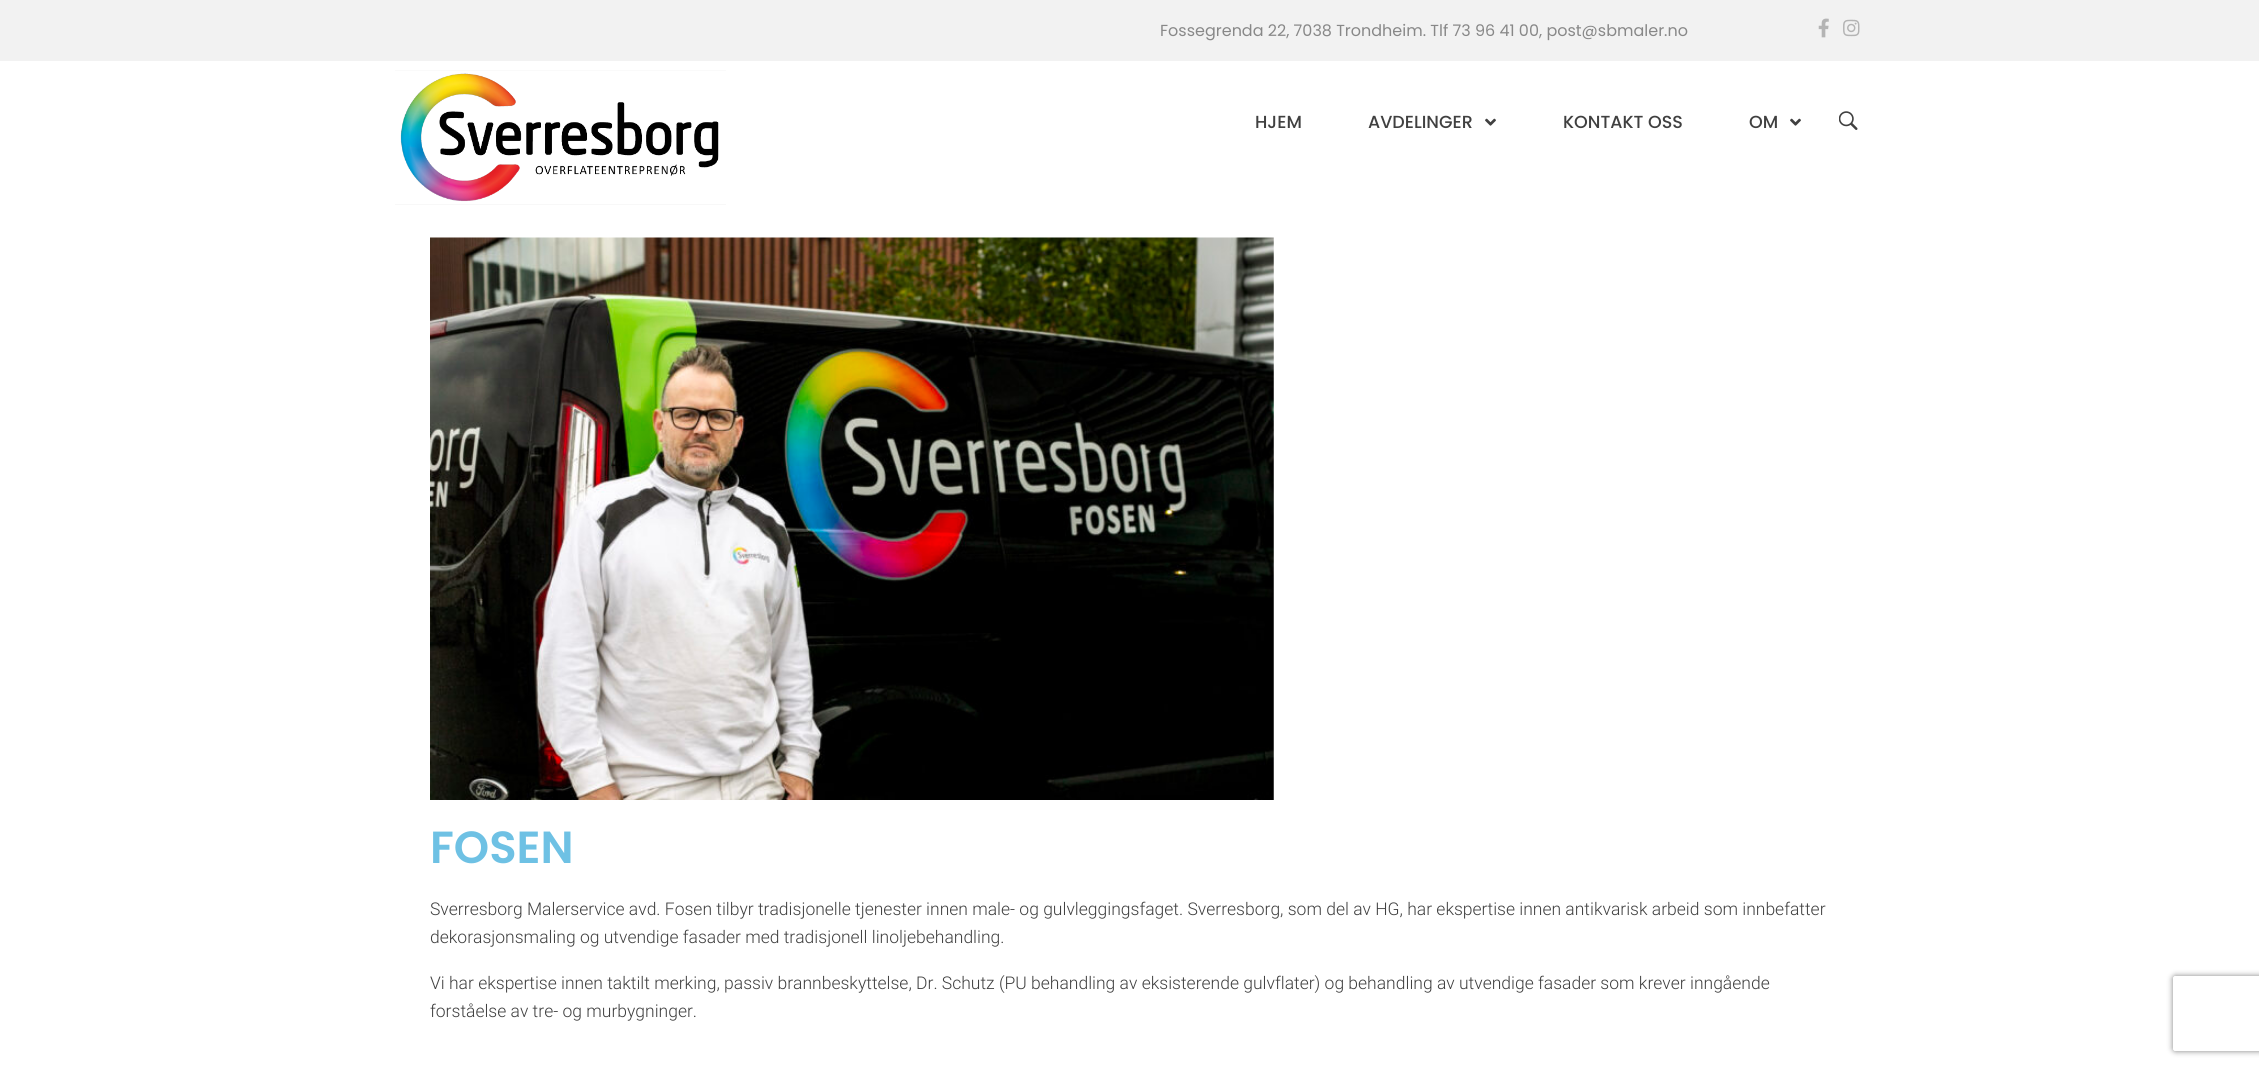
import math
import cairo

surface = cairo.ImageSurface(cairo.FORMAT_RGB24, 2259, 1068)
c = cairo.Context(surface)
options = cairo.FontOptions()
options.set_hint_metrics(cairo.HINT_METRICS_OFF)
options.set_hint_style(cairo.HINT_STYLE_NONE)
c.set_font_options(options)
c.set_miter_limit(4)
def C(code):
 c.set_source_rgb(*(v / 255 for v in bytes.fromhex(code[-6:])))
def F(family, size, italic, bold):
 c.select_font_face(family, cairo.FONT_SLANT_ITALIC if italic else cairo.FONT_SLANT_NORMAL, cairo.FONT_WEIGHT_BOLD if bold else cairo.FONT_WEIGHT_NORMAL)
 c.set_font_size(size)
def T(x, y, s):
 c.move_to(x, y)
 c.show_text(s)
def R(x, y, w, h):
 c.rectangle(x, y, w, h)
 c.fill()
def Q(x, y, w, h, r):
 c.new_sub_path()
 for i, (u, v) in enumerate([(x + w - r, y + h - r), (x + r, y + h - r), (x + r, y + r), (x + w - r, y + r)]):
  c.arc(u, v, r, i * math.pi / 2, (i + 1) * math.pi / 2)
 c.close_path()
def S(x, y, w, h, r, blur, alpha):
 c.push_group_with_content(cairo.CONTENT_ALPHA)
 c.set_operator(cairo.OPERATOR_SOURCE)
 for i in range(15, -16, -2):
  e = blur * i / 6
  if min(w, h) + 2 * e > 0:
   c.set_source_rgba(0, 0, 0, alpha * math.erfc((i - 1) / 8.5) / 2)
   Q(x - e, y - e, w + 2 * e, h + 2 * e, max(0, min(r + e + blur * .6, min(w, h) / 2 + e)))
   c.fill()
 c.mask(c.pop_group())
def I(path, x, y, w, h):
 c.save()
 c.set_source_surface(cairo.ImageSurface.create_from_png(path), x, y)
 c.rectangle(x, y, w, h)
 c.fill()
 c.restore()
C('ffffff')
c.paint()
C('f2f2f2')
R(0,0,2259,61)
F('Poppins',16,0,0)
C('888888')
T(1160,36,'Fossegrenda 22, 7038 Trondheim. Tlf 73 96 41 00, post@sbmaler.no')
I('1.png',1818,18,11,20)
I('2.png',1843,19,17,18)
I('3.png',395,70,331,135)
F('Poppins Medium',17.5,0,0)
C('404040')
T(1255,128,'HJEM')
T(1368,128,'AVDELINGER')
I('4.png',1485,118,11,8)
T(1563,128,'KONTAKT OSS')
T(1749,128,'OM')
I('4.png',1790,118,11,8)
I('5.png',1839,111,19,19)
I('6.png',430,237,844,563)
F('Poppins SemiBold',45,0,0)
C('6ec1e4')
T(430,863,'FOSEN')
F('Roboto Light',17.5,0,0)
C('404040')
T(430,915,'Sverresborg Malerservice avd. Fosen tilbyr tradisjonelle tjenester innen male- og gulvleggingsfaget. Sverresborg, som del av HG, har ekspertise innen antikvarisk arbeid som innbefatter')
T(430,943,'dekorasjonsmaling og utvendige fasader med tradisjonell linoljebehandling.')
T(430,989,'Vi har ekspertise innen taktilt merking, passiv brannbeskyttelse, Dr. Schutz (PU behandling av eksisterende gulvflater) og behandling av utvendige fasader som krever inngående')
T(430,1017,'forståelse av tre- og murbygninger.')
c.save()
c.set_fill_rule(cairo.FILL_RULE_EVEN_ODD)
c.new_path()
c.move_to(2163,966)
c.line_to(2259,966)
c.line_to(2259,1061)
c.line_to(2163,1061)
c.close_path()
c.move_to(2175.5,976)
c.line_to(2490.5,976)
c.curve_to(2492,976,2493,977,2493,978.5)
c.line_to(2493,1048.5)
c.curve_to(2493,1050,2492,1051,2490.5,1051)
c.line_to(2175.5,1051)
c.curve_to(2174,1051,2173,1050,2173,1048.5)
c.line_to(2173,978.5)
c.curve_to(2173,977,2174,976,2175.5,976)
c.close_path()
c.clip()
C('808080')
S(2173,976,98,75,2.5,3,1)
c.restore()
surface.write_to_png('o.png')
